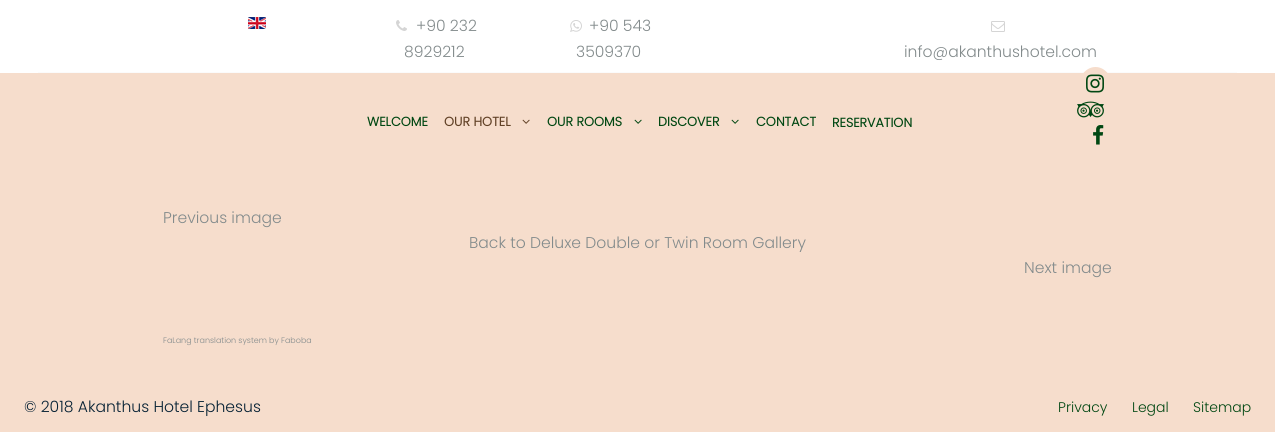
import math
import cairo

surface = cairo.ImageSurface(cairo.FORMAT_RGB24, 1275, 432)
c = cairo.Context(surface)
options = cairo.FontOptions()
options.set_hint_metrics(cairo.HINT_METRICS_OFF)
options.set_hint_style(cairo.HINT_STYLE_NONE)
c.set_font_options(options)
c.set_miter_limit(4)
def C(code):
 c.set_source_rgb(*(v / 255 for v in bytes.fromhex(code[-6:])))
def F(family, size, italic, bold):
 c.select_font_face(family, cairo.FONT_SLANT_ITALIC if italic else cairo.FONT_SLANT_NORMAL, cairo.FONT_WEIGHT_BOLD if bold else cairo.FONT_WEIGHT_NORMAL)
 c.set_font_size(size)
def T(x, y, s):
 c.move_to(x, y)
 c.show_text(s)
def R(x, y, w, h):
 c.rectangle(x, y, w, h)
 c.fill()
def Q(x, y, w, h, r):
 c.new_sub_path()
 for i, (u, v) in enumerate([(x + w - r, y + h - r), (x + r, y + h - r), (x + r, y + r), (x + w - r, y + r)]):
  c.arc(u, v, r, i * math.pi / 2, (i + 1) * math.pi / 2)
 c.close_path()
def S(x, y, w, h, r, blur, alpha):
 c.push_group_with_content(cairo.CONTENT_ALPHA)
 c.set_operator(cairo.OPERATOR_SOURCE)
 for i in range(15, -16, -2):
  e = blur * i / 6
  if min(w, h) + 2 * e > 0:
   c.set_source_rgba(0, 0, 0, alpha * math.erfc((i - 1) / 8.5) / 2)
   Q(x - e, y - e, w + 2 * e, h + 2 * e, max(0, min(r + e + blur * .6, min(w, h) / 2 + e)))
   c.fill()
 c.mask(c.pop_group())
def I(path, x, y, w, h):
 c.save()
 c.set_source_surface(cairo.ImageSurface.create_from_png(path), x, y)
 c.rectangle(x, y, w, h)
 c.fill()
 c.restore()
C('f6ddcc')
c.paint()
C('ffffff')
R(0,0,1275,73)
I('1.png',248,17,18,12)
I('2.png',396,20,11,11)
F('Poppins Light',15.6,0,0)
C('838b8c')
T(416,31,'+90 232')
c.save()
c.rectangle(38,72,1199,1)
c.clip()
C('000000')
S(0,83,1275,98,0,12.5,.1)
c.restore()
T(404,57,'8929212')
I('3.png',570,20,12,12)
T(589,31,'+90 543')
T(576,57,'3509370')
I('4.png',991,21,14,11)
T(904,57,'info@akanthushotel.com')
F('Poppins',12.75,0,1)
C('004712')
T(367,126,'WELCOME')
C('614126')
T(444,126,'OUR HOTEL')
I('5.png',522,119,8,5)
C('004712')
T(547,126,'OUR ROOMS')
I('6.png',634,119,8,5)
T(658,126,'DISCOVER')
I('6.png',731,119,8,5)
T(756,126,'CONTACT')
T(832,127,'RESERVATION')
C('f6ddcc')
c.new_path()
c.move_to(1095.5,67)
c.curve_to(1104.5,67,1112,75.5,1112,85.5)
c.curve_to(1112,95.5,1104.5,104,1095.5,104)
c.curve_to(1086.5,104,1079,95.5,1079,85.5)
c.curve_to(1079,75.5,1086.5,67,1095.5,67)
c.close_path()
c.fill()
I('7.png',1086,74,18,19)
I('8.png',1077,101,27,17)
I('9.png',1093,125,11,20)
R(0,171,1275,26)
F('Poppins Light',15.6,0,0)
C('838b8c')
T(163,223,'Previous image')
T(469,248,'Back to Deluxe Double or Twin Room Gallery')
T(1024,273,'Next image')
F('Poppins Light',8,0,0)
T(163,343,'FaLang translation system by Faboba')
F('Poppins Light',15.6,0,0)
C('072235')
T(24,412,'© 2018 Akanthus Hotel Ephesus')
F('Poppins Light',14,0,0)
C('004712')
T(1058,412,'Privacy')
T(1132,412,'Legal')
T(1193,412,'Sitemap')
surface.write_to_png('o.png')
